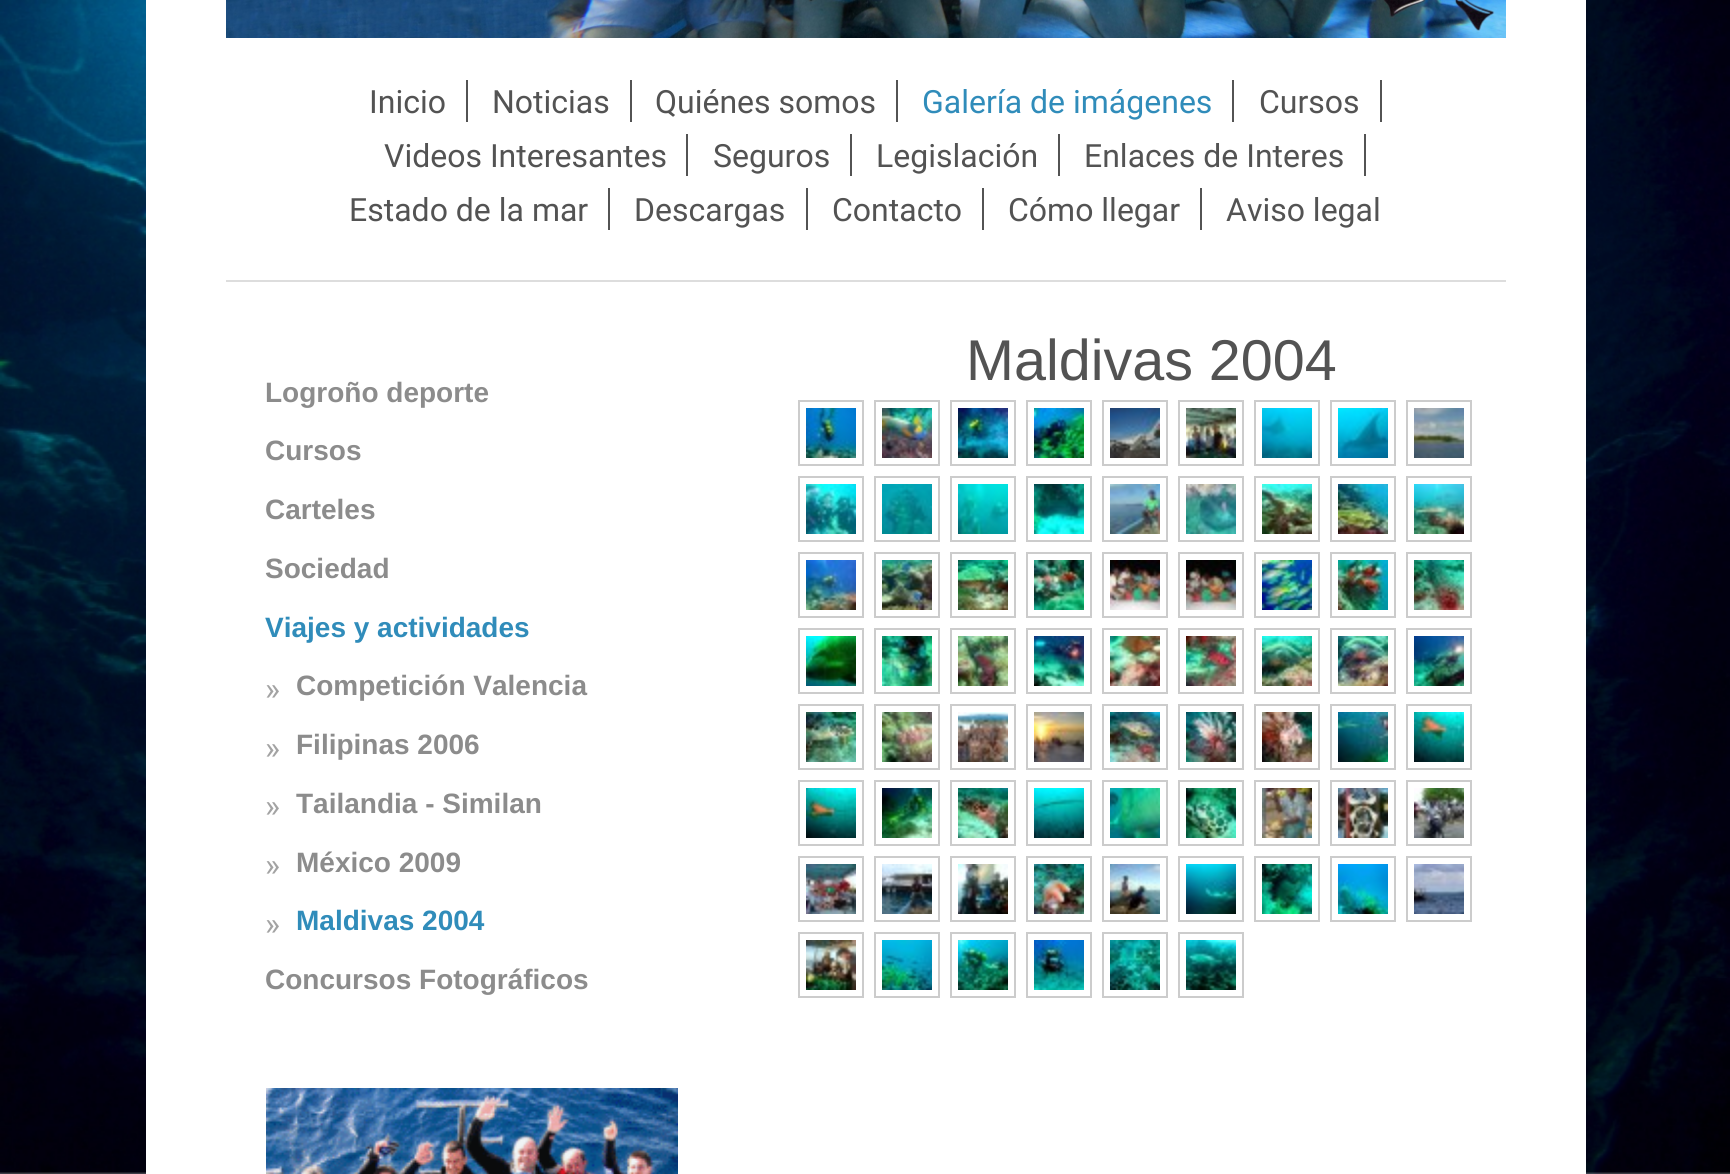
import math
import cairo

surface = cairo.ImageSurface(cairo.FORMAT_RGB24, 1730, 1174)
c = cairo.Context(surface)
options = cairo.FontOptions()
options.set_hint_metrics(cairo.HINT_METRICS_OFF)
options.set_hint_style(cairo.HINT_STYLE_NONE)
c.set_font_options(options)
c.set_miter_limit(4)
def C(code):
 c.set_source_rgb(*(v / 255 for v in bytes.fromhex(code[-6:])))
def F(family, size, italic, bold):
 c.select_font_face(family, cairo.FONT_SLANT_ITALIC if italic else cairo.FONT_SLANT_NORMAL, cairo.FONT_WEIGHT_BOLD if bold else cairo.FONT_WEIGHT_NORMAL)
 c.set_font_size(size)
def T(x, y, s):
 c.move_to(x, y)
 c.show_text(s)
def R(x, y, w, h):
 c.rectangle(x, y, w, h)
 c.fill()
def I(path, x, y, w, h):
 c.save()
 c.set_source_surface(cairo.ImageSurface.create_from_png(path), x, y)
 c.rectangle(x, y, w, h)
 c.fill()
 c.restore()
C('ffffff')
c.paint()
I('1.png',0,0,1730,1174)
C('ffffff')
R(146,0,1440,1174)
I('2.png',226,0,1280,38)
C('dddddd')
R(226,280,1280,2)
C('535353')
R(466,80,2,42)
F('Roboto',32,0,0)
T(369,113,'Inicio')
R(630,80,2,42)
T(492,113,'Noticias')
R(896,80,2,42)
T(655,113,'Quiénes somos')
R(1232,80,2,42)
C('308cba')
T(922,113,'Galería de imágenes')
C('535353')
R(1380,80,2,42)
T(1259,113,'Cursos')
R(686,134,2,42)
T(384,167,'Videos Interesantes')
R(850,134,2,42)
T(713,167,'Seguros')
R(1058,134,2,42)
T(876,167,'Legislación')
R(1364,134,2,42)
T(1084,167,'Enlaces de Interes')
R(608,188,2,42)
T(349,221,'Estado de la mar')
R(806,188,2,42)
T(634,221,'Descargas')
R(982,188,2,42)
T(832,221,'Contacto')
R(1200,188,2,42)
T(1008,221,'Cómo llegar')
T(1226,221,'Aviso legal')
F('Liberation Sans',57.5,0,0)
T(966,380,'Maldivas 2004')
c.rectangle(799,401,64,64)
C('cccccc')
c.stroke()
I('3.png',806,408,50,50)
c.rectangle(875,401,64,64)
c.stroke()
I('4.png',882,408,50,50)
c.rectangle(951,401,64,64)
c.stroke()
I('5.png',958,408,50,50)
c.rectangle(1027,401,64,64)
c.stroke()
I('6.png',1034,408,50,50)
c.rectangle(1103,401,64,64)
c.stroke()
I('7.png',1110,408,50,50)
c.rectangle(1179,401,64,64)
c.stroke()
I('8.png',1186,408,50,50)
c.rectangle(1255,401,64,64)
c.stroke()
I('9.png',1262,408,50,50)
c.rectangle(1331,401,64,64)
c.stroke()
I('10.png',1338,408,50,50)
c.rectangle(1407,401,64,64)
c.stroke()
I('11.png',1414,408,50,50)
c.rectangle(799,477,64,64)
c.stroke()
I('12.png',806,484,50,50)
c.rectangle(875,477,64,64)
c.stroke()
I('13.png',882,484,50,50)
c.rectangle(951,477,64,64)
c.stroke()
I('14.png',958,484,50,50)
c.rectangle(1027,477,64,64)
c.stroke()
I('15.png',1034,484,50,50)
c.rectangle(1103,477,64,64)
c.stroke()
I('16.png',1110,484,50,50)
c.rectangle(1179,477,64,64)
c.stroke()
I('17.png',1186,484,50,50)
c.rectangle(1255,477,64,64)
c.stroke()
I('18.png',1262,484,50,50)
c.rectangle(1331,477,64,64)
c.stroke()
I('19.png',1338,484,50,50)
c.rectangle(1407,477,64,64)
c.stroke()
I('20.png',1414,484,50,50)
c.rectangle(799,553,64,64)
c.stroke()
I('21.png',806,560,50,50)
c.rectangle(875,553,64,64)
c.stroke()
I('22.png',882,560,50,50)
c.rectangle(951,553,64,64)
c.stroke()
I('23.png',958,560,50,50)
c.rectangle(1027,553,64,64)
c.stroke()
I('24.png',1034,560,50,50)
c.rectangle(1103,553,64,64)
c.stroke()
I('25.png',1110,560,50,50)
c.rectangle(1179,553,64,64)
c.stroke()
I('26.png',1186,560,50,50)
c.rectangle(1255,553,64,64)
c.stroke()
I('27.png',1262,560,50,50)
c.rectangle(1331,553,64,64)
c.stroke()
I('28.png',1338,560,50,50)
c.rectangle(1407,553,64,64)
c.stroke()
I('29.png',1414,560,50,50)
c.rectangle(799,629,64,64)
c.stroke()
I('30.png',806,636,50,50)
c.rectangle(875,629,64,64)
c.stroke()
I('31.png',882,636,50,50)
c.rectangle(951,629,64,64)
c.stroke()
I('32.png',958,636,50,50)
c.rectangle(1027,629,64,64)
c.stroke()
I('33.png',1034,636,50,50)
c.rectangle(1103,629,64,64)
c.stroke()
I('34.png',1110,636,50,50)
c.rectangle(1179,629,64,64)
c.stroke()
I('35.png',1186,636,50,50)
c.rectangle(1255,629,64,64)
c.stroke()
I('36.png',1262,636,50,50)
c.rectangle(1331,629,64,64)
c.stroke()
I('37.png',1338,636,50,50)
c.rectangle(1407,629,64,64)
c.stroke()
I('38.png',1414,636,50,50)
c.rectangle(799,705,64,64)
c.stroke()
I('39.png',806,712,50,50)
c.rectangle(875,705,64,64)
c.stroke()
I('40.png',882,712,50,50)
c.rectangle(951,705,64,64)
c.stroke()
I('41.png',958,712,50,50)
c.rectangle(1027,705,64,64)
c.stroke()
I('42.png',1034,712,50,50)
c.rectangle(1103,705,64,64)
c.stroke()
I('43.png',1110,712,50,50)
c.rectangle(1179,705,64,64)
c.stroke()
I('44.png',1186,712,50,50)
c.rectangle(1255,705,64,64)
c.stroke()
I('45.png',1262,712,50,50)
c.rectangle(1331,705,64,64)
c.stroke()
I('46.png',1338,712,50,50)
c.rectangle(1407,705,64,64)
c.stroke()
I('47.png',1414,712,50,50)
c.rectangle(799,781,64,64)
c.stroke()
I('48.png',806,788,50,50)
c.rectangle(875,781,64,64)
c.stroke()
I('49.png',882,788,50,50)
c.rectangle(951,781,64,64)
c.stroke()
I('50.png',958,788,50,50)
c.rectangle(1027,781,64,64)
c.stroke()
I('51.png',1034,788,50,50)
c.rectangle(1103,781,64,64)
c.stroke()
I('52.png',1110,788,50,50)
c.rectangle(1179,781,64,64)
c.stroke()
I('53.png',1186,788,50,50)
c.rectangle(1255,781,64,64)
c.stroke()
I('54.png',1262,788,50,50)
c.rectangle(1331,781,64,64)
c.stroke()
I('55.png',1338,788,50,50)
c.rectangle(1407,781,64,64)
c.stroke()
I('56.png',1414,788,50,50)
c.rectangle(799,857,64,64)
c.stroke()
I('57.png',806,864,50,50)
c.rectangle(875,857,64,64)
c.stroke()
I('58.png',882,864,50,50)
c.rectangle(951,857,64,64)
c.stroke()
I('59.png',958,864,50,50)
c.rectangle(1027,857,64,64)
c.stroke()
I('60.png',1034,864,50,50)
c.rectangle(1103,857,64,64)
c.stroke()
I('61.png',1110,864,50,50)
c.rectangle(1179,857,64,64)
c.stroke()
I('62.png',1186,864,50,50)
c.rectangle(1255,857,64,64)
c.stroke()
I('63.png',1262,864,50,50)
c.rectangle(1331,857,64,64)
c.stroke()
I('64.png',1338,864,50,50)
c.rectangle(1407,857,64,64)
c.stroke()
I('65.png',1414,864,50,50)
c.rectangle(799,933,64,64)
c.stroke()
I('66.png',806,940,50,50)
c.rectangle(875,933,64,64)
c.stroke()
I('67.png',882,940,50,50)
c.rectangle(951,933,64,64)
c.stroke()
I('68.png',958,940,50,50)
c.rectangle(1027,933,64,64)
c.stroke()
I('69.png',1034,940,50,50)
c.rectangle(1103,933,64,64)
c.stroke()
I('70.png',1110,940,50,50)
c.rectangle(1179,933,64,64)
c.stroke()
I('71.png',1186,940,50,50)
F('Liberation Sans',28,0,1)
C('8c8c8c')
T(265,402,'Logroño deporte')
T(265,460,'Cursos')
T(265,519,'Carteles')
T(265,578,'Sociedad')
C('308cba')
T(265,637,'Viajes y actividades')
F('Roboto',32,0,0)
C('a3a3a3')
T(265,700,'»')
F('Liberation Sans',28,0,1)
C('8c8c8c')
T(296,695,'Competición Valencia')
F('Roboto',32,0,0)
C('a3a3a3')
T(265,759,'»')
F('Liberation Sans',28,0,1)
C('8c8c8c')
T(296,754,'Filipinas 2006')
F('Roboto',32,0,0)
C('a3a3a3')
T(265,817,'»')
F('Liberation Sans',28,0,1)
C('8c8c8c')
T(296,813,'Tailandia - Similan')
F('Roboto',32,0,0)
C('a3a3a3')
T(265,876,'»')
F('Liberation Sans',28,0,1)
C('8c8c8c')
T(296,872,'México 2009')
F('Roboto',32,0,0)
C('a3a3a3')
T(265,935,'»')
F('Liberation Sans',28,0,1)
C('308cba')
T(296,930,'Maldivas 2004')
C('8c8c8c')
T(265,989,'Concursos Fotográficos')
I('72.png',266,1088,412,86)
surface.write_to_png('o.png')
